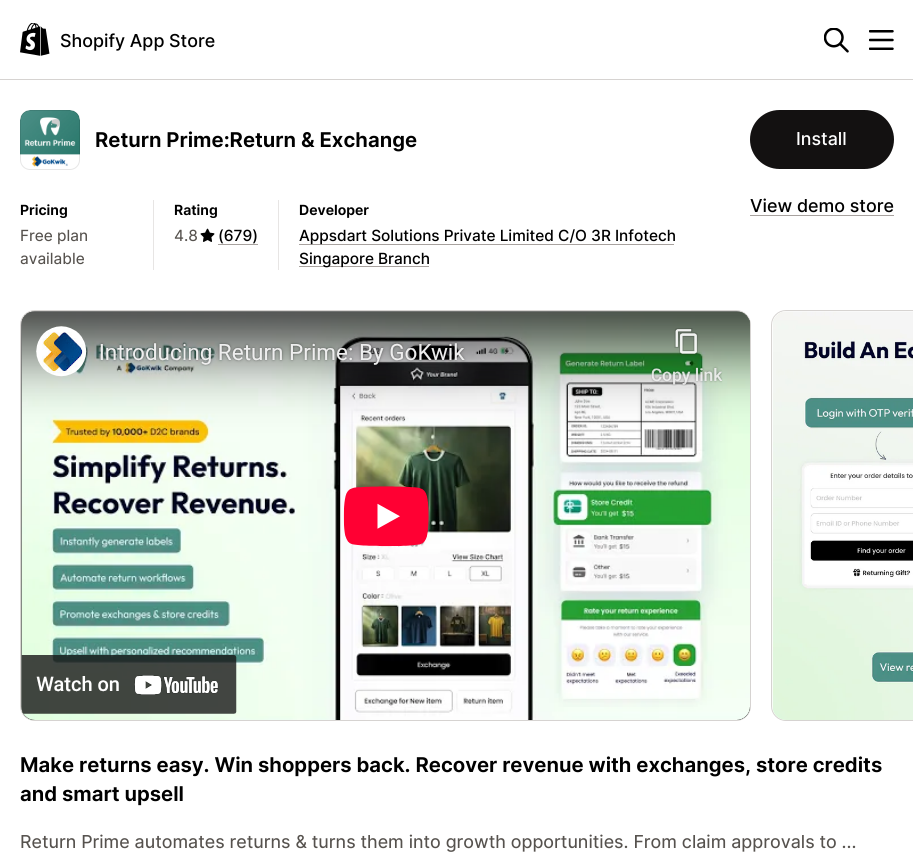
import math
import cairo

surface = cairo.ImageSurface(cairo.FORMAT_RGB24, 913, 853)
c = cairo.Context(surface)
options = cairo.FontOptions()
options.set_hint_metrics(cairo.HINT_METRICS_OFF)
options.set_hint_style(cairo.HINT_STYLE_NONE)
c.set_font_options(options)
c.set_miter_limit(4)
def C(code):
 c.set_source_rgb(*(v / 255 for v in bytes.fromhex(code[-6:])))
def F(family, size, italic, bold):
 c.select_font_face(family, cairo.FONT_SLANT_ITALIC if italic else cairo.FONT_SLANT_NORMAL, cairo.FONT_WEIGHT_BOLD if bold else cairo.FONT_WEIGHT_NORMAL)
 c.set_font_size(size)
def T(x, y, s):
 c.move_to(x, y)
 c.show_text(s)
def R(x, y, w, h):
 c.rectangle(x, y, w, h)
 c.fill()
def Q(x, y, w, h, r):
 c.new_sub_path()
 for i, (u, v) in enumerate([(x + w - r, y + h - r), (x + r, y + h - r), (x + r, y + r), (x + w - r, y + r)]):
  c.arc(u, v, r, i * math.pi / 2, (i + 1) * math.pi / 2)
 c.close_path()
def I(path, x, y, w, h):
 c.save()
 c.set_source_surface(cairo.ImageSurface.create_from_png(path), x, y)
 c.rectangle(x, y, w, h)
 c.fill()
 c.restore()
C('ffffff')
c.paint()
C('d6d3d1')
R(0,79,913,1)
I('1.png',20,23,30,33)
F('Inter Medium',17.85,0,0)
C('000000')
T(60,47,'Shopify App Store')
I('2.png',824,28,25,25)
I('3.png',869,30,25,20)
I('4.png',20,110,60,57)
Q(20.5,110.5,59,59,9.5)
c.set_source_rgba(0,0,0,0.1)
c.set_line_width(1)
c.stroke()
F('Inter SemiBold',20.35,0,0)
C('000000')
T(95,147,'Return Prime:Return & Exchange')
C('e7e5e4')
R(153,200,1,70)
F('Inter SemiBold',14,0,0)
C('000000')
T(20,215,'Pricing')
F('Inter',15.4,0,0)
C('56524e')
T(20,241,'Free plan')
T(20,264,'available')
C('e7e5e4')
R(278,200,1,70)
F('Inter SemiBold',14,0,0)
C('000000')
T(174,215,'Rating')
F('Inter',15.4,0,0)
C('56524e')
T(174,241,'4.8')
I('5.png',200,228,15,14)
F('Inter Medium',15.4,0,0)
C('000000')
T(218,241,'(679)')
C('a8a29f')
R(218,244,40,1)
F('Inter SemiBold',14,0,0)
C('000000')
T(299,215,'Developer')
C('a8a29f')
R(299,244,375,1)
F('Inter Medium',15.4,0,0)
C('000000')
T(299,241,'Appsdart Solutions Private Limited C/O 3R Infotech')
C('a8a29f')
R(299,266,130,1)
C('000000')
T(299,264,'Singapore Branch')
C('131111')
Q(750,110,144,59,29.5)
c.fill()
F('Inter Medium',17.85,0,0)
C('ffffff')
T(796,145,'Install')
C('000000')
T(750,212,'View demo store')
C('a8a29f')
R(750,215,144,1)
Q(20.5,310.5,730,410,14.5)
C('d6d3d1')
c.stroke()
I('6.png',21,311,729,409)
Q(771.5,310.5,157,410,14.5)
c.stroke()
I('7.png',772,311,141,409)
F('Inter SemiBold',20.35,0,0)
C('000000')
T(20,772,'Make returns easy. Win shoppers back. Recover revenue with exchanges, store credits')
T(20,801,'and smart upsell')
F('Inter',17.85,0,0)
C('56524e')
T(20,848,'Return Prime automates returns & turns them into growth opportunities. From claim approvals to ...')
surface.write_to_png('o.png')
